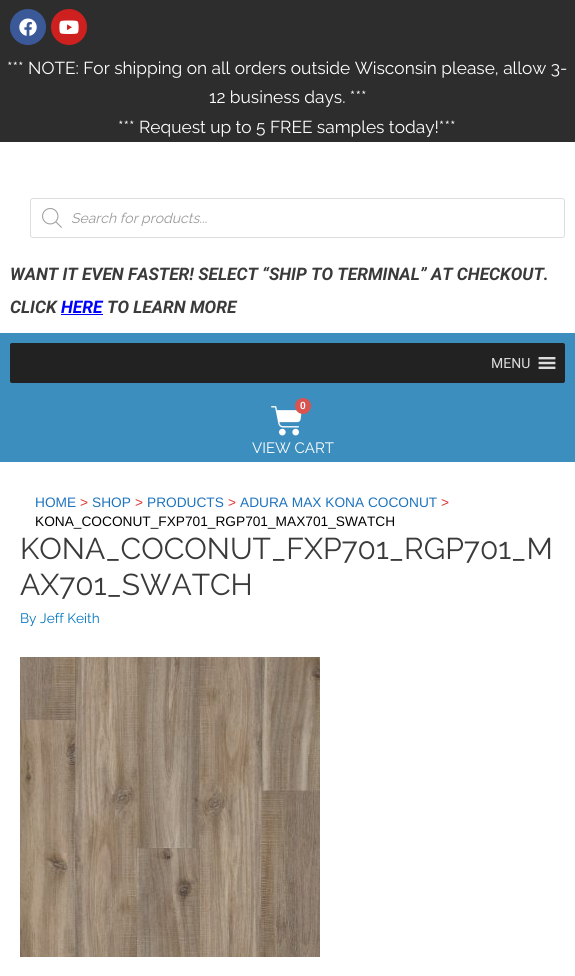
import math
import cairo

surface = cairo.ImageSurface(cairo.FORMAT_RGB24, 575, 976)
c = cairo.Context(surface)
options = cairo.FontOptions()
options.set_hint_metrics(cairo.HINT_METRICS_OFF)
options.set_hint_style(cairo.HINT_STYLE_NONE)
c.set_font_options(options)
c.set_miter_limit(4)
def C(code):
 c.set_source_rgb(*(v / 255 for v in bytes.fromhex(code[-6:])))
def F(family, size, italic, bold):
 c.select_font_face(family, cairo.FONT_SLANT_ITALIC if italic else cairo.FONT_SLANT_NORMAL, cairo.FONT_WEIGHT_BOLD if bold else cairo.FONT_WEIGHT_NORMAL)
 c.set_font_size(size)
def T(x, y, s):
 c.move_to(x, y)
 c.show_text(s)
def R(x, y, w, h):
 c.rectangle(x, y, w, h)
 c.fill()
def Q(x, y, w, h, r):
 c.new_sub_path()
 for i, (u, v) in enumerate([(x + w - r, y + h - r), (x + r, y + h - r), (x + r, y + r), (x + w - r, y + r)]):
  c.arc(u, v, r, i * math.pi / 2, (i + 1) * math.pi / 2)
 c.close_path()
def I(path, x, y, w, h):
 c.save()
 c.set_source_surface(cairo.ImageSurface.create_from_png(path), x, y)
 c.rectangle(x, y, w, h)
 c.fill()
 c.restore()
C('ffffff')
c.paint()
C('2d2d2d')
R(0,0,575,142)
C('3b5998')
c.arc(28,27,18,0,2 * math.pi)
c.fill()
I('1.png',19,18,18,18)
C('cd201f')
c.arc(69,27,18,0,2 * math.pi)
c.fill()
I('2.png',59,20,20,14)
F('Raleway',17.3,0,0)
C('ffffff')
T(7,74,'*** NOTE: For shipping on all orders outside Wisconsin please, allow 3-')
T(209,103,'12 business days. ***')
T(118,133,'*** Request up to 5 FREE samples today!***')
Q(30.5,198.5,534,39,2.5)
C('dddddd')
c.set_line_width(1)
c.stroke()
I('3.png',42,208,20,20)
F('Raleway',14,1,0)
C('999999')
T(71,223,'Search for products...')
F('Roboto',17.3,1,1)
C('3a3a3a')
T(10,280,'WANT IT EVEN FASTER! SELECT “SHIP TO TERMINAL” AT CHECKOUT.')
T(10,313,'CLICK')
C('0000ff')
T(61,313,'HERE')
R(61,314,42,1)
C('3a3a3a')
T(107,313,'TO LEARN MORE')
C('3c8ebe')
R(0,333,575,129)
C('222222')
Q(10,343,555,40,2)
c.fill()
F('Roboto',14,0,0)
C('dddddd')
T(491,368,'MENU')
I('4.png',538,357,18,12)
I('5.png',271,406,31,30)
C('d9534f')
c.arc(303,406,8,0,2 * math.pi)
c.fill()
F('Roboto SemiBold',10,0,0)
C('ffffff')
T(300,409,'0')
F('Raleway',15,0,0)
T(252,453,'VIEW CART')
F('Liberation Sans',13.7,0,0)
C('1e73be')
T(35,507,'HOME')
C('dd3333')
T(80,507,'>')
C('1e73be')
T(92,507,'SHOP')
C('dd3333')
T(135,507,'>')
C('1e73be')
T(147,507,'PRODUCTS')
C('dd3333')
T(228,507,'>')
C('1e73be')
T(240,507,'ADURA MAX KONA COCONUT')
C('dd3333')
T(441,507,'>')
C('020202')
T(35,526,'KONA_COCONUT_FXP701_RGP701_MAX701_SWATCH')
F('Raleway',30,0,0)
C('3a3a3a')
T(20,559,'KONA_COCONUT_FXP701_RGP701_M')
T(20,595,'AX701_SWATCH')
F('Raleway',13.7,0,0)
C('0274be')
T(20,623,'By Jeff Keith')
I('6.png',20,657,300,300)
surface.write_to_png('o.png')
